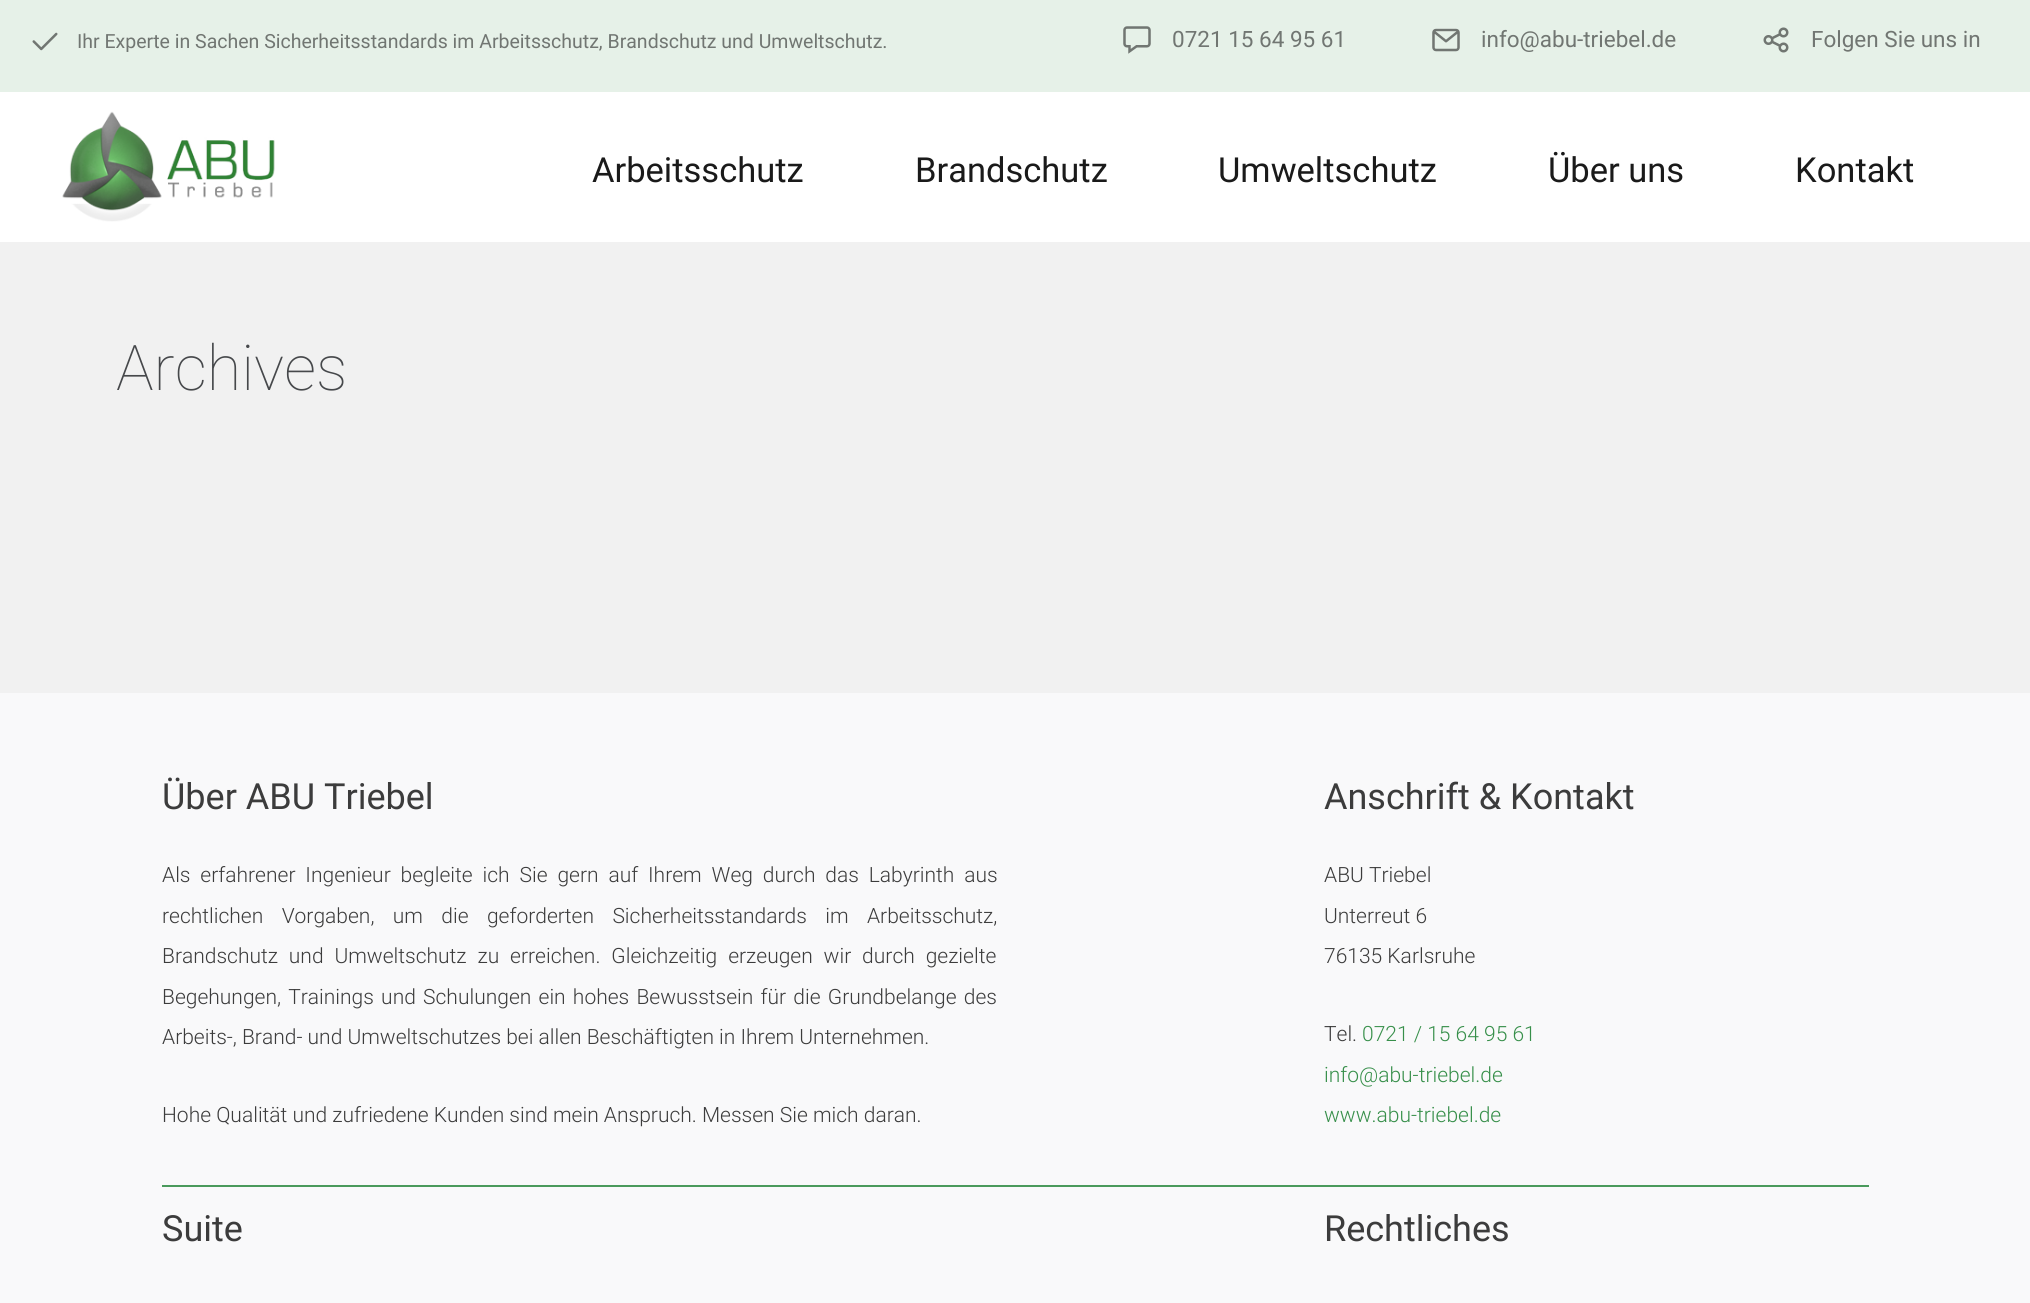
import math
import cairo

surface = cairo.ImageSurface(cairo.FORMAT_RGB24, 2030, 1303)
c = cairo.Context(surface)
options = cairo.FontOptions()
options.set_hint_metrics(cairo.HINT_METRICS_OFF)
options.set_hint_style(cairo.HINT_STYLE_NONE)
c.set_font_options(options)
c.set_miter_limit(4)
def C(code):
 c.set_source_rgb(*(v / 255 for v in bytes.fromhex(code[-6:])))
def F(family, size, italic, bold):
 c.select_font_face(family, cairo.FONT_SLANT_ITALIC if italic else cairo.FONT_SLANT_NORMAL, cairo.FONT_WEIGHT_BOLD if bold else cairo.FONT_WEIGHT_NORMAL)
 c.set_font_size(size)
def T(x, y, s):
 c.move_to(x, y)
 c.show_text(s)
def L(x, y, s, letter, word):
 c.move_to(x, y)
 for ch in s:
  c.show_text(ch)
  c.rel_move_to(letter + word * (ch == ' '), 0)
def R(x, y, w, h):
 c.rectangle(x, y, w, h)
 c.fill()
def I(path, x, y, w, h):
 c.save()
 c.set_source_surface(cairo.ImageSurface.create_from_png(path), x, y)
 c.rectangle(x, y, w, h)
 c.fill()
 c.restore()
C('ffffff')
c.paint()
C('e6f1e8')
R(0,0,2030,92)
I('1.png',32,32,26,19)
F('Roboto',19.5,0,0)
C('717672')
T(77,48,'Ihr Experte in Sachen Sicherheitsstandards im Arbeitsschutz, Brandschutz und Umweltschutz.')
I('2.png',1123,26,28,28)
F('Roboto',22.5,0,0)
T(1172,47,'0721 15 64 95 61')
I('3.png',1432,28,28,24)
T(1481,47,'info@abu-triebel.de')
I('4.png',1763,27,26,26)
T(1811,47,'Folgen Sie uns in')
I('5.png',62,111,213,111)
F('Roboto',34.5,0,0)
C('1a1a1a')
T(592,182,'Arbeitsschutz')
T(915,182,'Brandschutz')
T(1218,182,'Umweltschutz')
T(1548,182,'Über uns')
T(1795,182,'Kontakt')
C('f1f1f1')
R(0,242,2030,451)
F('Roboto Thin',63,0,0)
C('46484b')
T(116,390,'Archives')
C('f9f9fa')
R(0,693,2030,610)
F('Roboto',36,0,0)
C('3c3c3c')
T(162,809,'Über ABU Triebel')
F('Roboto Light',21,0,0)
L(162,882,'Als erfahrener Ingenieur begleite ich Sie gern auf Ihrem Weg durch das Labyrinth aus',0,4.75)
L(162,923,'rechtlichen Vorgaben, um die geforderten Sicherheitsstandards im Arbeitsschutz,',0,13.25)
L(162,963,'Brandschutz und Umweltschutz zu erreichen. Gleichzeitig erzeugen wir durch gezielte',0,5.75)
L(162,1004,'Begehungen, Trainings und Schulungen ein hohes Bewusstsein für die Grundbelange des',0,2.1)
T(162,1044,'Arbeits-, Brand- und Umweltschutzes bei allen Beschäftigten in Ihrem Unternehmen.')
T(162,1122,'Hohe Qualität und zufriedene Kunden sind mein Anspruch. Messen Sie mich daran.')
F('Roboto',36,0,0)
T(1324,809,'Anschrift & Kontakt')
F('Roboto Light',21,0,0)
T(1324,882,'ABU Triebel')
T(1324,923,'Unterreut 6')
T(1324,963,'76135 Karlsruhe')
T(1324,1041,'Tel.')
C('378f4a')
T(1362,1041,'0721 / 15 64 95 61')
T(1324,1082,'info@abu-triebel.de')
T(1324,1122,'www.abu-triebel.de')
C('4a9a5c')
R(162,1185,1707,2)
F('Roboto',36,0,0)
C('3c3c3c')
T(162,1241,'Suite')
T(1324,1241,'Rechtliches')
surface.write_to_png('o.png')
